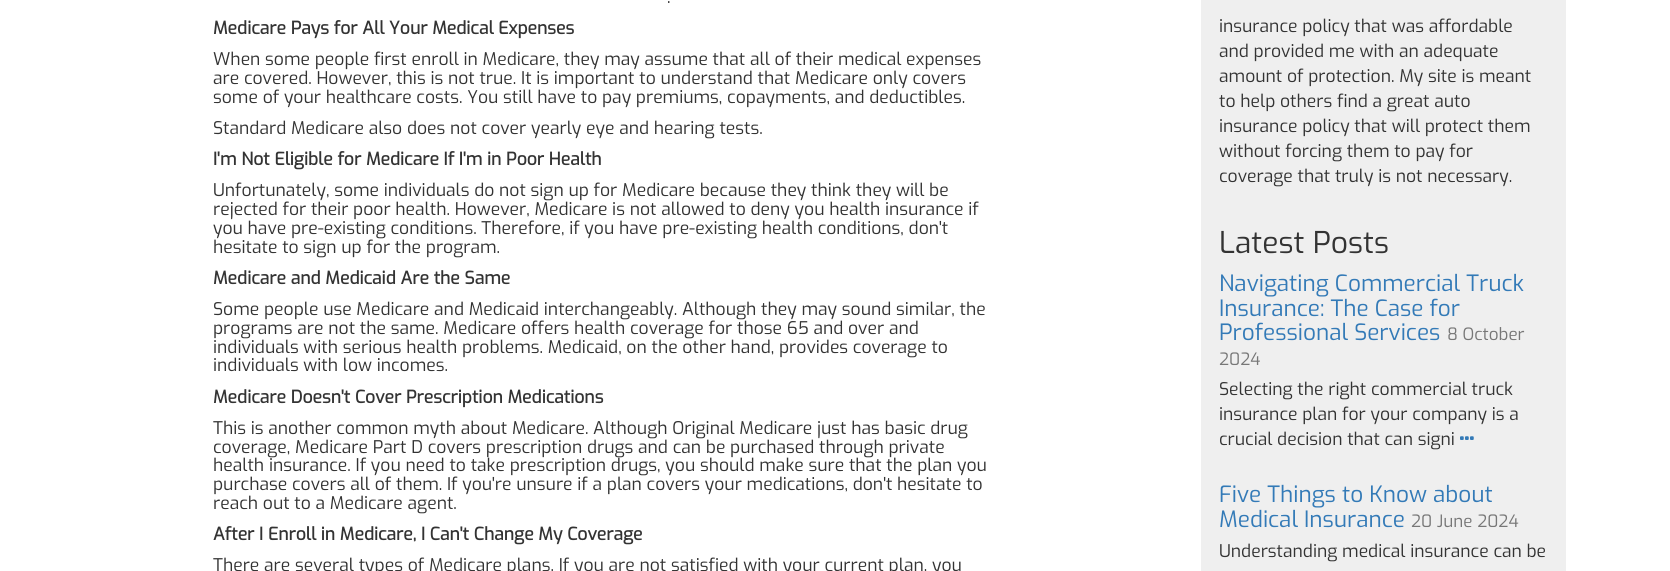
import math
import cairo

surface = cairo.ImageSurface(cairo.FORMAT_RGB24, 1670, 571)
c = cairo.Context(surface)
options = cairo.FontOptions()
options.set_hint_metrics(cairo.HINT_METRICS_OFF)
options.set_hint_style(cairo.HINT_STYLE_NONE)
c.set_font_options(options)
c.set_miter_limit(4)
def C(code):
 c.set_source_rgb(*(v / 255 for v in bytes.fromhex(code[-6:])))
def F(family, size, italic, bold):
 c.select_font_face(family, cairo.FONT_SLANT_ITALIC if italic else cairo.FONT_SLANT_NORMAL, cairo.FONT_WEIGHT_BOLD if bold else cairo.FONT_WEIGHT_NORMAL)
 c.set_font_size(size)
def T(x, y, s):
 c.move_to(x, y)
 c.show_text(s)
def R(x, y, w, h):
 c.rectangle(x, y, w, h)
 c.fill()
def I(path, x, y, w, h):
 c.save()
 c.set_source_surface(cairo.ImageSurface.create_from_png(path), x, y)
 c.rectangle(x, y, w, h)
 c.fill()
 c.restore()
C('ffffff')
c.paint()
F('Exo',17.5,0,0)
C('333333')
T(667,3,'.')
F('Exo',17.5,0,1)
T(213,34,'Medicare Pays for All Your Medical Expenses')
F('Exo',17.5,0,0)
T(213,65,'When some people first enroll in Medicare, they may assume that all of their medical expenses')
T(213,84,'are covered. However, this is not true. It is important to understand that Medicare only covers')
T(213,103,'some of your healthcare costs. You still have to pay premiums, copayments, and deductibles.')
T(213,134,'Standard Medicare also does not cover yearly eye and hearing tests.')
F('Exo',17.5,0,1)
T(213,165,'I\'m Not Eligible for Medicare If I\'m in Poor Health')
F('Exo',17.5,0,0)
T(213,196,'Unfortunately, some individuals do not sign up for Medicare because they think they will be')
T(213,215,'rejected for their poor health. However, Medicare is not allowed to deny you health insurance if')
T(213,234,'you have pre-existing conditions. Therefore, if you have pre-existing health conditions, don\'t')
T(213,253,'hesitate to sign up for the program.')
F('Exo',17.5,0,1)
T(213,284,'Medicare and Medicaid Are the Same')
F('Exo',17.5,0,0)
T(213,315,'Some people use Medicare and Medicaid interchangeably. Although they may sound similar, the')
T(213,334,'programs are not the same. Medicare offers health coverage for those 65 and over and')
T(213,353,'individuals with serious health problems. Medicaid, on the other hand, provides coverage to')
T(213,371,'individuals with low incomes.')
F('Exo',17.5,0,1)
T(213,403,'Medicare Doesn\'t Cover Prescription Medications')
F('Exo',17.5,0,0)
T(213,434,'This is another common myth about Medicare. Although Original Medicare just has basic drug')
T(213,453,'coverage, Medicare Part D covers prescription drugs and can be purchased through private')
T(213,471,'health insurance. If you need to take prescription drugs, you should make sure that the plan you')
T(213,490,'purchase covers all of them. If you\'re unsure if a plan covers your medications, don\'t hesitate to')
T(213,509,'reach out to a Medicare agent.')
F('Exo',17.5,0,1)
T(213,540,'After I Enroll in Medicare, I Can\'t Change My Coverage')
F('Exo',17.5,0,0)
T(213,571,'There are several types of Medicare plans. If you are not satisfied with your current plan, you')
C('efefef')
R(1201,0,365,571)
C('333333')
T(1219,32,'insurance policy that was affordable')
T(1219,57,'and provided me with an adequate')
T(1219,82,'amount of protection. My site is meant')
T(1219,107,'to help others find a great auto')
T(1219,132,'insurance policy that will protect them')
T(1219,157,'without forcing them to pay for')
T(1219,182,'coverage that truly is not necessary.')
F('Exo',30,0,0)
T(1219,253,'Latest Posts')
F('Exo',22.5,0,0)
C('337ab7')
T(1219,291,'Navigating Commercial Truck')
T(1219,316,'Insurance: The Case for')
T(1219,340,'Professional Services')
F('Exo',17,0,0)
C('777777')
T(1447,340,'8 October')
T(1219,365,'2024')
F('Exo',17.5,0,0)
C('333333')
T(1219,395,'Selecting the right commercial truck')
T(1219,420,'insurance plan for your company is a')
T(1219,445,'crucial decision that can signi')
I('1.png',1460,436,14,4)
F('Exo',22.5,0,0)
C('337ab7')
T(1219,502,'Five Things to Know about')
T(1219,527,'Medical Insurance')
F('Exo',17,0,0)
C('777777')
T(1411,527,'20 June 2024')
F('Exo',17.5,0,0)
C('333333')
T(1219,557,'Understanding medical insurance can be')
surface.write_to_png('o.png')
